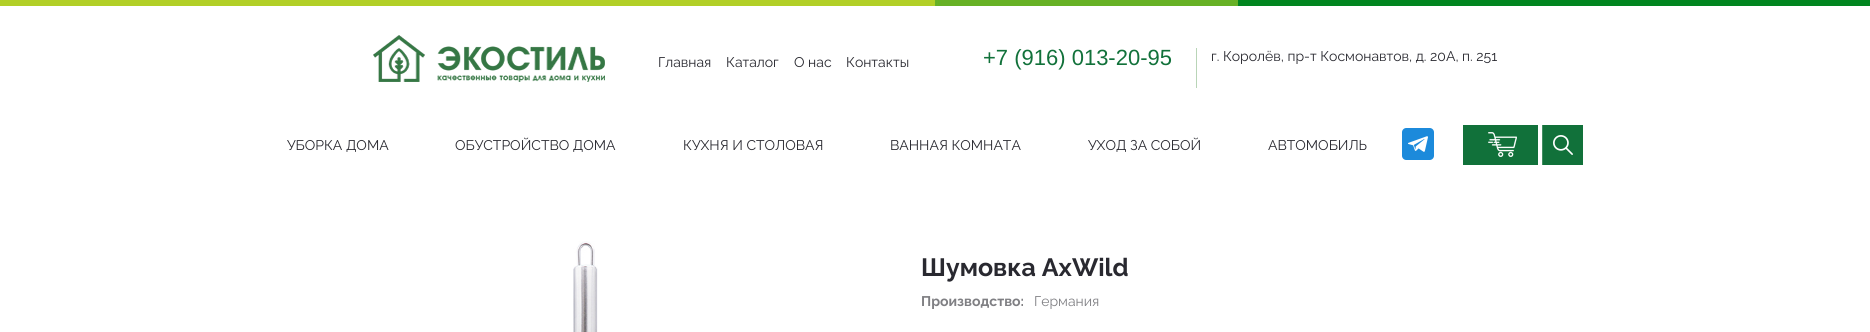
import math
import cairo

surface = cairo.ImageSurface(cairo.FORMAT_RGB24, 1870, 332)
c = cairo.Context(surface)
options = cairo.FontOptions()
options.set_hint_metrics(cairo.HINT_METRICS_OFF)
options.set_hint_style(cairo.HINT_STYLE_NONE)
c.set_font_options(options)
c.set_miter_limit(4)
def C(code):
 c.set_source_rgb(*(v / 255 for v in bytes.fromhex(code[-6:])))
def F(family, size, italic, bold):
 c.select_font_face(family, cairo.FONT_SLANT_ITALIC if italic else cairo.FONT_SLANT_NORMAL, cairo.FONT_WEIGHT_BOLD if bold else cairo.FONT_WEIGHT_NORMAL)
 c.set_font_size(size)
def T(x, y, s):
 c.move_to(x, y)
 c.show_text(s)
def R(x, y, w, h):
 c.rectangle(x, y, w, h)
 c.fill()
def I(path, x, y, w, h):
 c.save()
 c.set_source_surface(cairo.ImageSurface.create_from_png(path), x, y)
 c.rectangle(x, y, w, h)
 c.fill()
 c.restore()
C('ffffff')
c.paint()
I('1.png',0,0,1870,6)
I('2.png',373,35,232,47)
F('Raleway',14,0,0)
C('292930')
T(658,67,'Главная')
T(726,67,'Каталог')
T(794,67,'О нас')
T(846,67,'Контакты')
F('Liberation Sans',22,0,0)
C('11713a')
T(983,65,'+7 (916) 013-20-95')
C('b9d5b7')
R(1196,48,1,40)
F('Raleway',14,0,0)
C('292930')
T(1211,61,'г. Королёв, пр-т Космонавтов, д. 20А, п. 251')
T(287,150,'УБОРКА ДОМА')
T(455,150,'ОБУСТРОЙСТВО ДОМА')
T(683,150,'КУХНЯ И СТОЛОВАЯ')
T(890,150,'ВАННАЯ КОМНАТА')
T(1088,150,'УХОД ЗА СОБОЙ')
T(1268,150,'АВТОМОБИЛЬ')
I('3.png',1402,128,32,32)
C('11713a')
R(1463,125,75,40)
I('4.png',1488,132,29,25)
C('418d61')
R(1542,125,1,40)
C('11713a')
R(1543,125,40,40)
I('5.png',1553,135,20,20)
I('6.png',573,241,25,91)
F('Raleway',25,0,1)
C('292930')
T(921,276,'Шумовка AxWild')
F('Raleway',14,0,1)
C('7f7f83')
T(921,306,'Производство:')
F('Raleway',14,0,0)
T(1034,306,'Германия')
surface.write_to_png('o.png')
